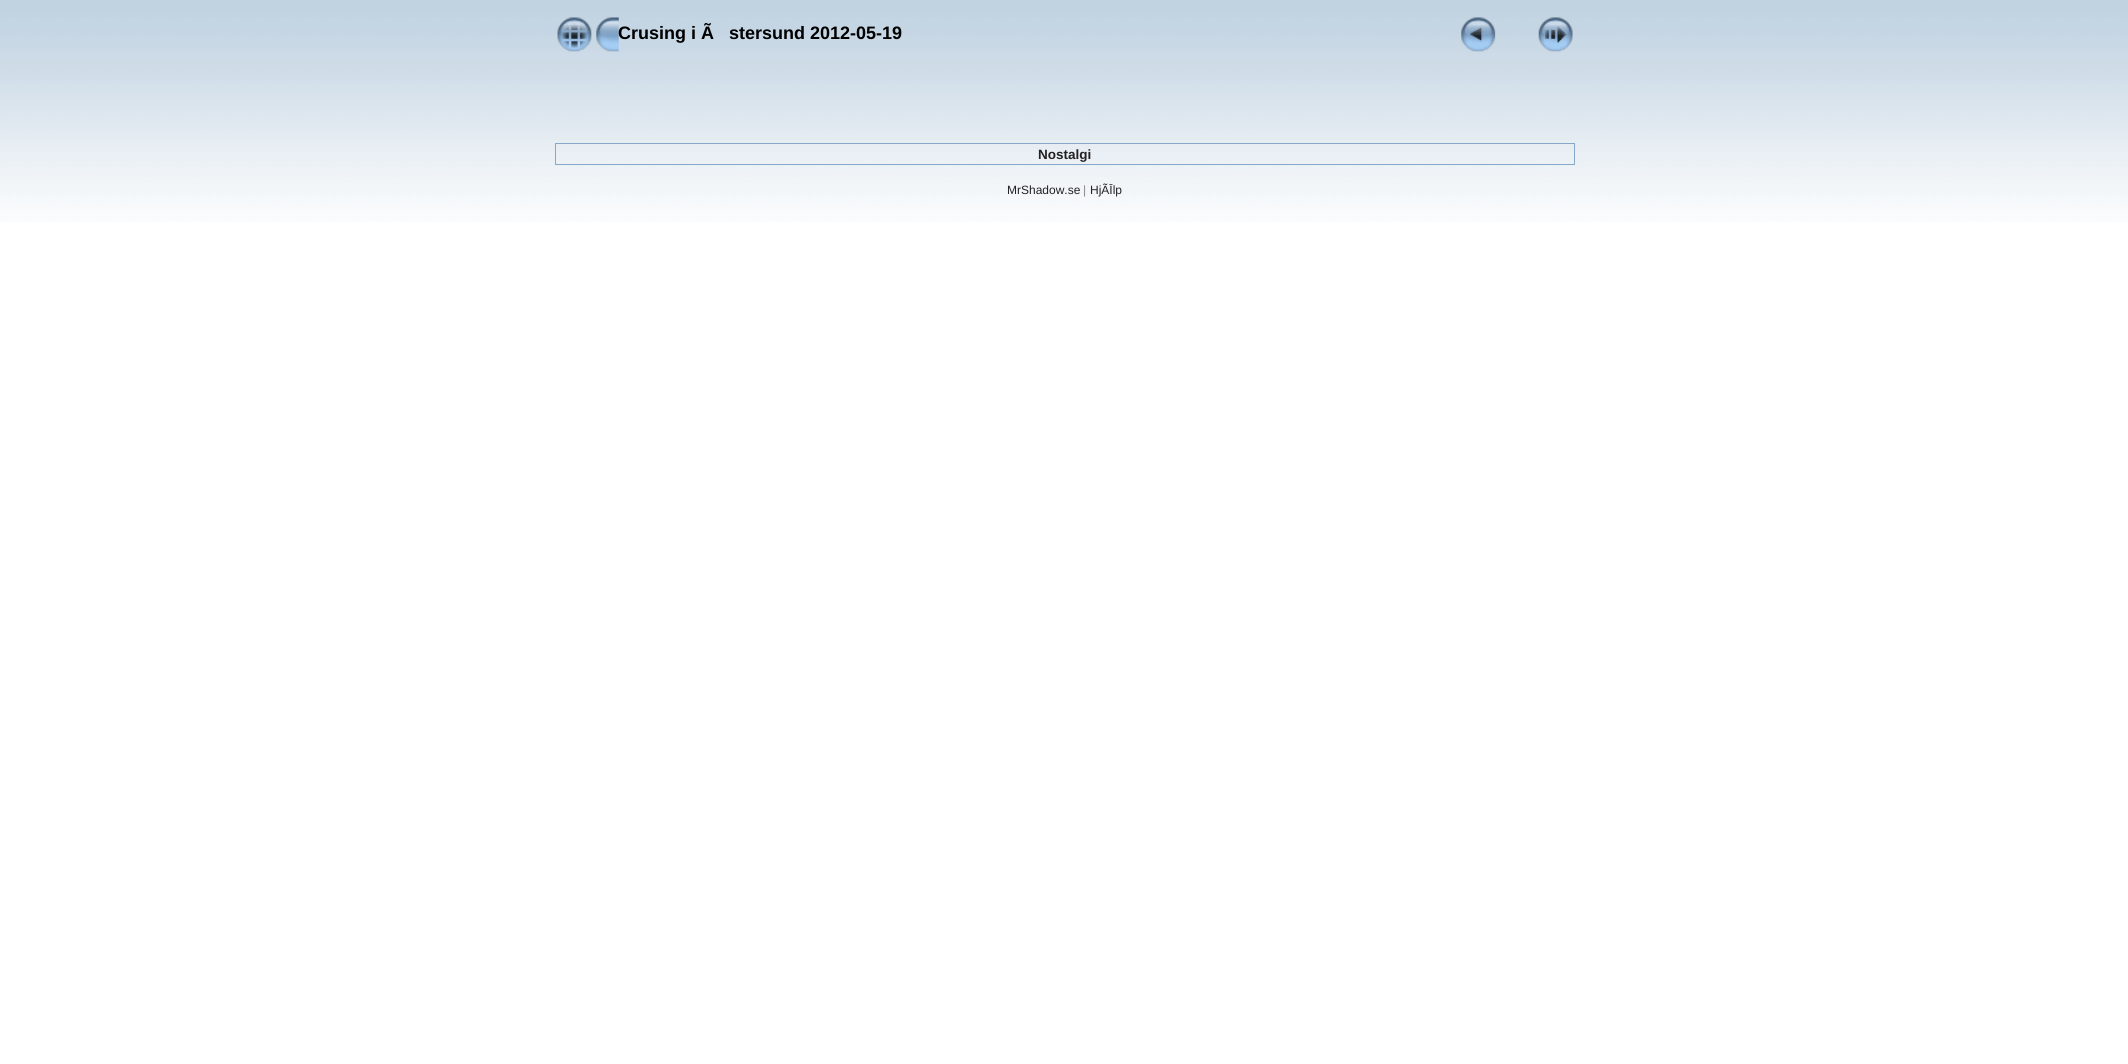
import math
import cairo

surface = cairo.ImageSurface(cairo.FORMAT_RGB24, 2128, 1064)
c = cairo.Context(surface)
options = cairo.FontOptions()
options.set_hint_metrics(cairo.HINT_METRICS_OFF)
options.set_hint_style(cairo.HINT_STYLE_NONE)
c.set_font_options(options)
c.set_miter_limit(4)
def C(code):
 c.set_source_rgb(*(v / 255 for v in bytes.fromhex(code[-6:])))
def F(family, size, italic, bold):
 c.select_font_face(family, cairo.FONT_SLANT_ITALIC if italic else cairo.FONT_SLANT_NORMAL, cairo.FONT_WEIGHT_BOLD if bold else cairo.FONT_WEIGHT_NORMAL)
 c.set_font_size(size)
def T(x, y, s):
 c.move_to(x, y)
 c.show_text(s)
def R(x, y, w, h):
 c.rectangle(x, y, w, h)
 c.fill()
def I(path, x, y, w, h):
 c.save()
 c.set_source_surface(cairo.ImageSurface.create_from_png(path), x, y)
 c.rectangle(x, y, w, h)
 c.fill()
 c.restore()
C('ffffff')
c.paint()
I('1.png',0,0,2128,222)
I('2.png',557,17,35,35)
I('3.png',596,17,23,35)
F('Liberation Sans',18,0,1)
C('000000')
T(618,39,'Crusing i Ã')
T(729,39,'stersund 2012-05-19')
I('4.png',1461,17,35,35)
I('5.png',1538,17,35,35)
C('88a8ca')
R(555,143,1020,1)
R(1574,143,1,22)
R(555,164,1020,1)
R(555,143,1,22)
F('Liberation Sans',13.5,0,1)
C('222222')
T(1038,159,'Nostalgi')
F('Liberation Sans',12,0,0)
T(1007,194,'MrShadow.se')
C('888888')
T(1083,194,'|')
C('222222')
T(1090,194,'HjÃĪlp')
surface.write_to_png('o.png')
